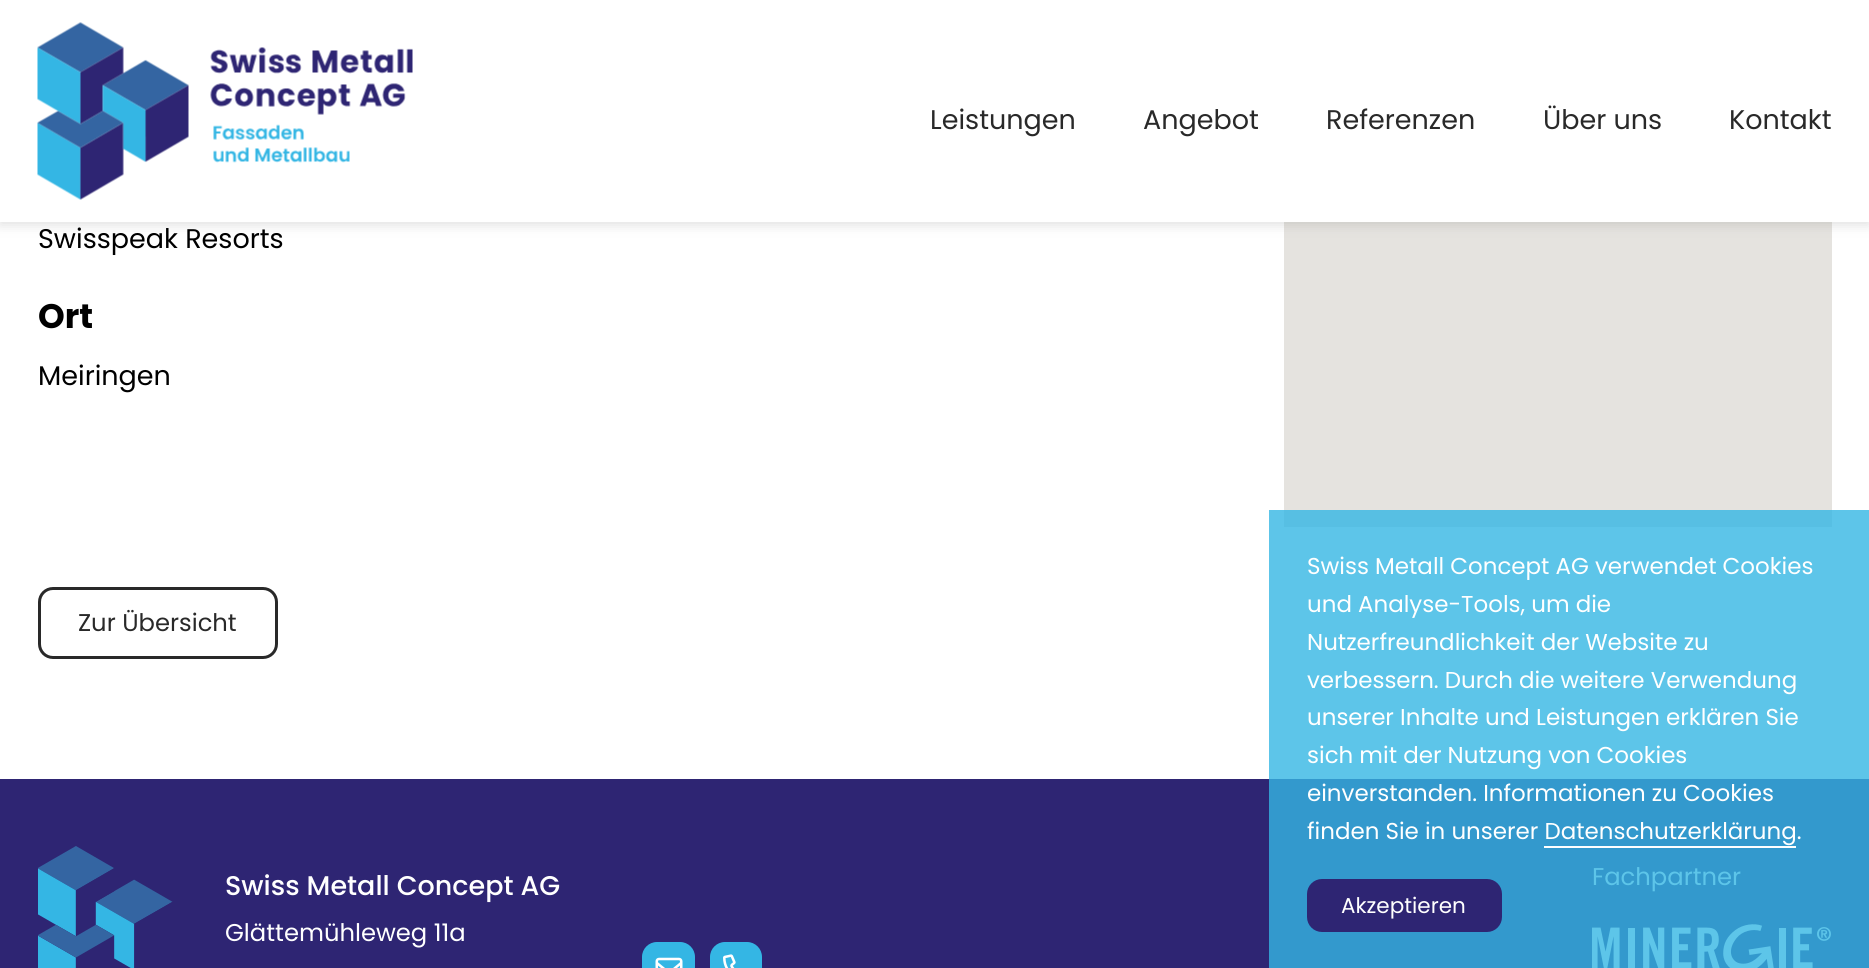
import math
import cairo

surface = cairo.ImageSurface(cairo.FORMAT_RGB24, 1869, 968)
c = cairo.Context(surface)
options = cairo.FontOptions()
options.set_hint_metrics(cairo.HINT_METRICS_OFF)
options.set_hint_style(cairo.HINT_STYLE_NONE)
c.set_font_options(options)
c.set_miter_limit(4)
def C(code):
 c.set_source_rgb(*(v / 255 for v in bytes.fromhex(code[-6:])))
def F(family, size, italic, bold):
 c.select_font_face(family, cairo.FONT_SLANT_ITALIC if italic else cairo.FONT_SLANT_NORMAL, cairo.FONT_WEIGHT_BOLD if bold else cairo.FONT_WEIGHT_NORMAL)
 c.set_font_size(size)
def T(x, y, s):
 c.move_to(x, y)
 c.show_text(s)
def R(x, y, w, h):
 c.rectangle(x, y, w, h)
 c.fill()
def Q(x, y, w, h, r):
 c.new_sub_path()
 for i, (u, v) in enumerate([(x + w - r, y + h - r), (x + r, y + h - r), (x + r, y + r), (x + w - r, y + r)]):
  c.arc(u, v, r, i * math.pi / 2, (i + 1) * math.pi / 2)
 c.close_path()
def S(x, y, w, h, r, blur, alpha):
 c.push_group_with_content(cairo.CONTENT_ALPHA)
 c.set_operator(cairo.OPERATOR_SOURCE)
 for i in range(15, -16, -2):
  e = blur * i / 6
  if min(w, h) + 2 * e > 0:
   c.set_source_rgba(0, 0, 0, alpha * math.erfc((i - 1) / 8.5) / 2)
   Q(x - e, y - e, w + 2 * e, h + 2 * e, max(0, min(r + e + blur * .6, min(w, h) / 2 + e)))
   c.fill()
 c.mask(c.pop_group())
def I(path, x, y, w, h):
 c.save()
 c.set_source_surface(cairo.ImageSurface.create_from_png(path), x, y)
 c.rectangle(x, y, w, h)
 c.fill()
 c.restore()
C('ffffff')
c.paint()
C('5dc5e9')
R(1269,510,600,269)
C('e5e3df')
R(1284,222,548,288)
C('636363')
S(0,3,1869,222,0,6,.2)
C('ffffff')
R(0,0,1869,222)
I('1.png',37,22,376,178)
F('Poppins',27,0,0)
C('292929')
T(930,129,'Leistungen')
T(1143,129,'Angebot')
T(1326,129,'Referenzen')
T(1543,129,'Über uns')
T(1729,129,'Kontakt')
C('000000')
T(38,248,'Swisspeak Resorts')
F('Poppins',34,0,1)
T(38,328,'Ort')
F('Poppins',27,0,0)
T(38,385,'Meiringen')
C('57bfe3')
R(1284,510,548,17)
Q(39.5,588.5,237,69,13.5)
C('292929')
c.set_line_width(3)
c.stroke()
F('Poppins',24.25,0,0)
T(78,631,'Zur Übersicht')
F('Poppins',22.95,0,0)
C('ffffff')
T(1307,574,'Swiss Metall Concept AG verwendet Cookies')
T(1307,612,'und Analyse-Tools, um die')
T(1307,650,'Nutzerfreundlichkeit der Website zu')
T(1307,688,'verbessern. Durch die weitere Verwendung')
T(1307,725,'unserer Inhalte und Leistungen erklären Sie')
T(1307,763,'sich mit der Nutzung von Cookies')
C('3399cd')
R(1269,779,600,189)
C('ffffff')
T(1307,801,'einverstanden. Informationen zu Cookies')
T(1307,839,'finden Sie in unserer Datenschutzerklärung.')
R(1544,846,252,2)
C('2e2573')
Q(1308,880,193,51,14)
c.fill_preserve()
c.set_line_width(2)
c.stroke()
F('Poppins',21.5,0,0)
C('ffffff')
T(1341,913,'Akzeptieren')
C('2e2573')
R(0,779,1269,189)
I('2.png',38,846,135,122)
F('Poppins Medium',27,0,0)
C('ffffff')
T(225,895,'Swiss Metall Concept AG')
F('Poppins',24.25,0,0)
T(225,941,'Glättemühleweg 11a')
C('5dc5e9')
T(1592,885,'Fachpartner')
I('3.png',1592,924,239,44)
C('34b6e4')
Q(642,942,53,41,15)
c.fill()
I('4.png',655,957,28,11)
Q(710,942,52,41,15)
c.fill()
I('5.png',723,954,13,14)
surface.write_to_png('o.png')
